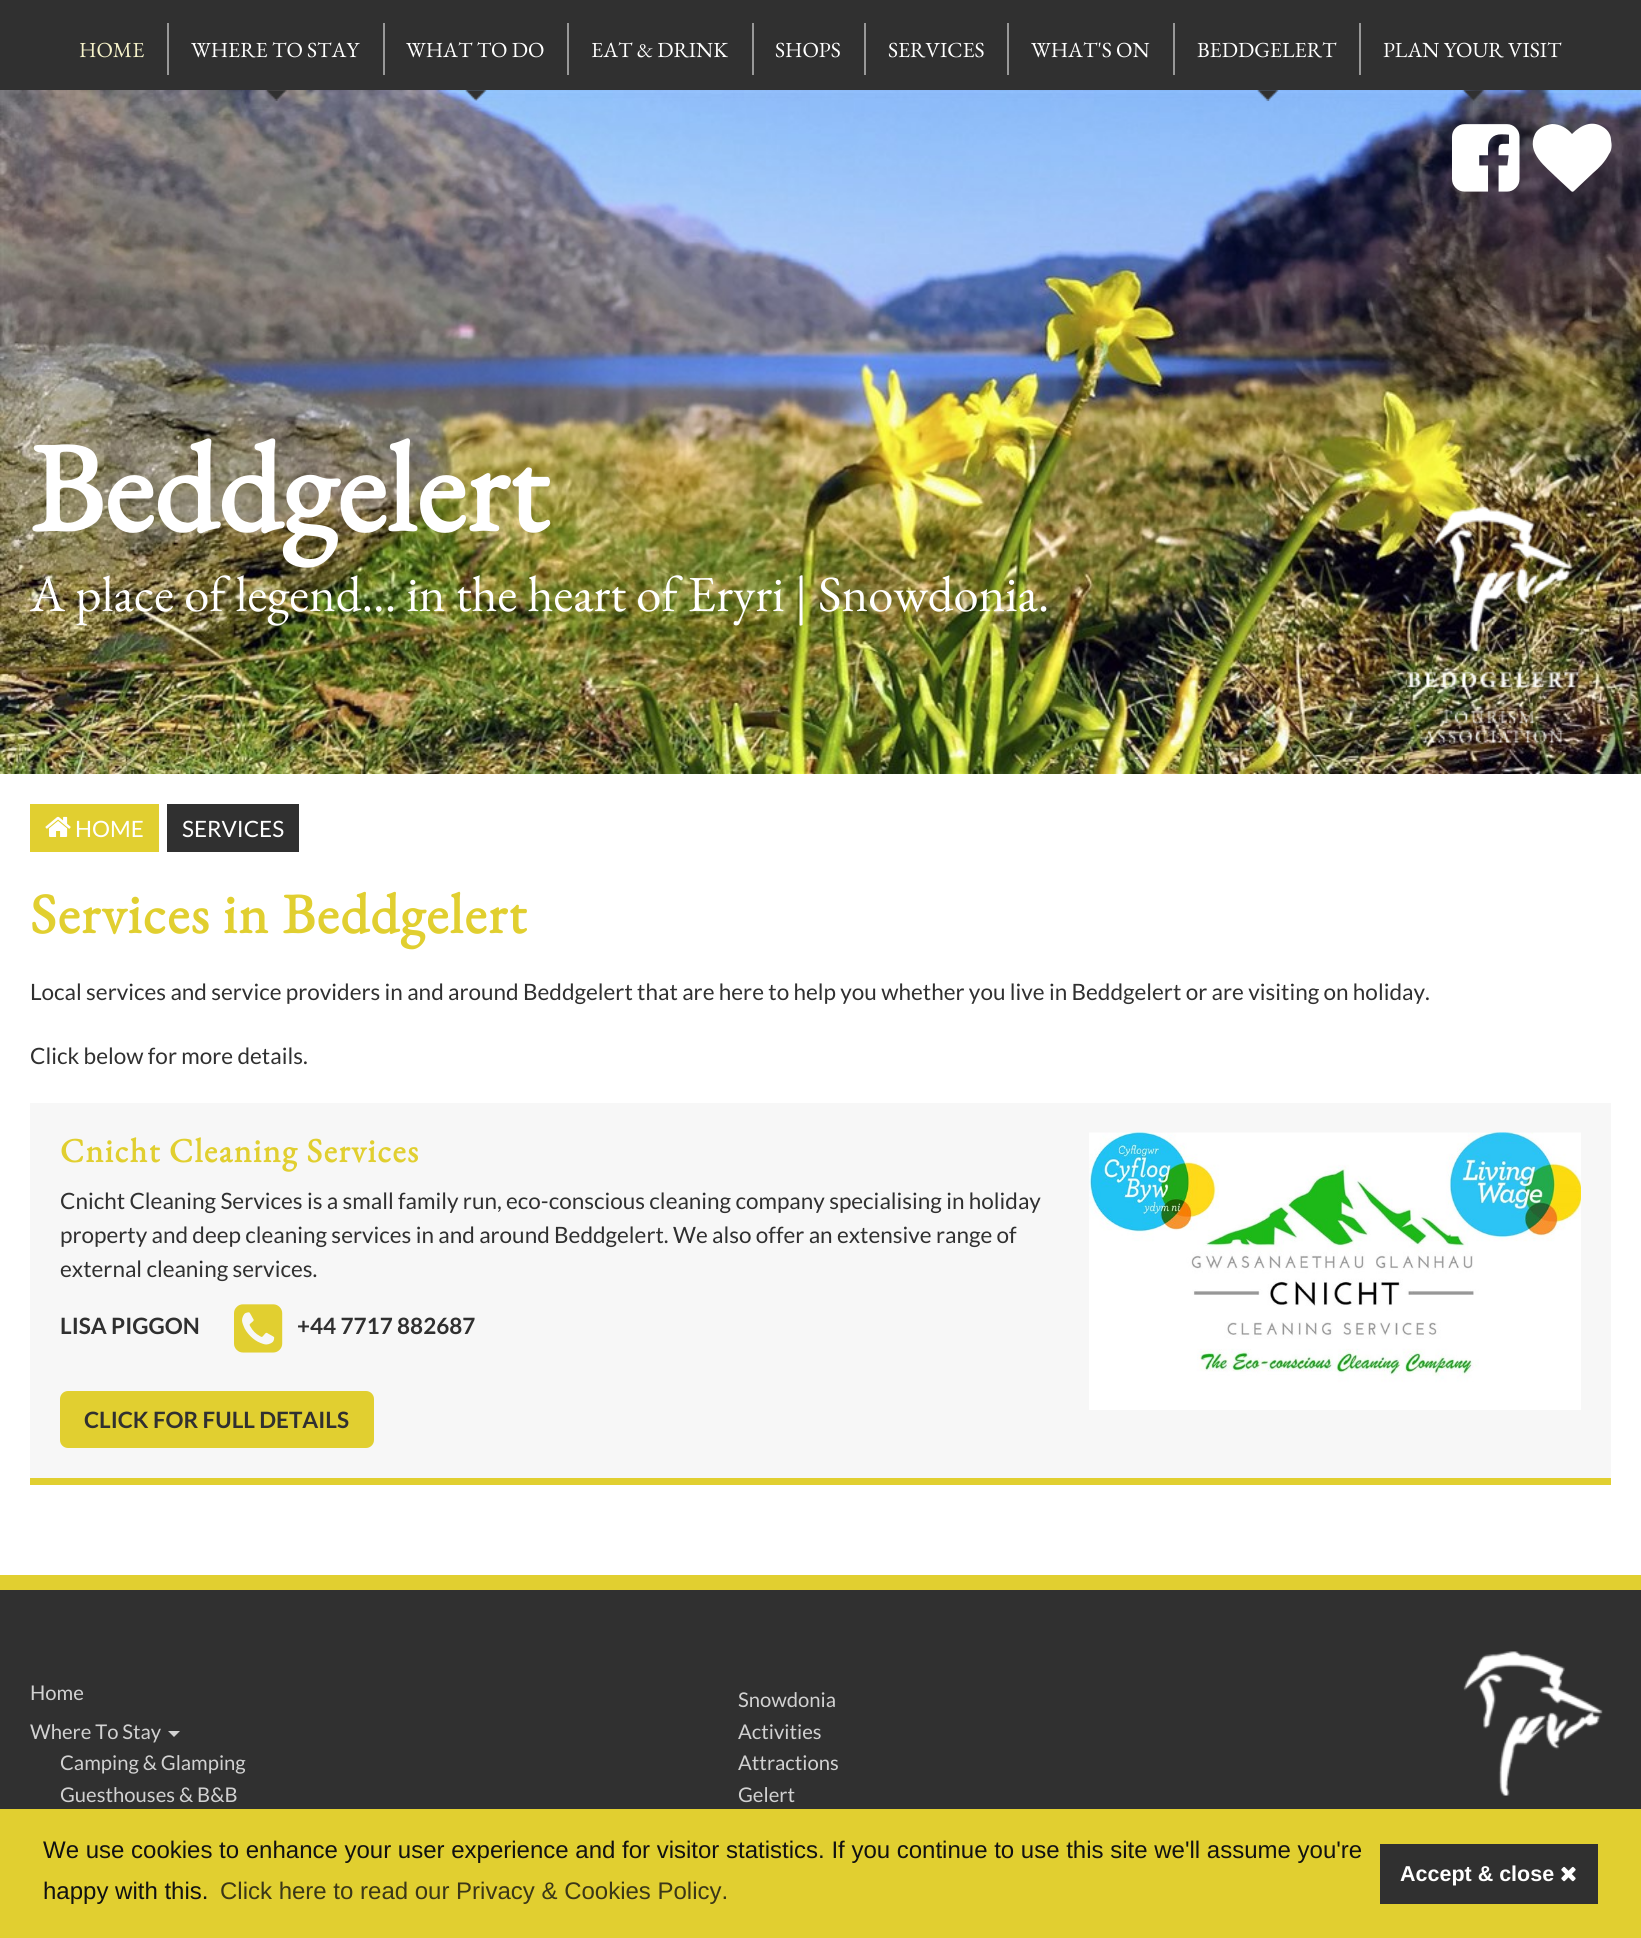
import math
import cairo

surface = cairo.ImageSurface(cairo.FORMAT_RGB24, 1641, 1938)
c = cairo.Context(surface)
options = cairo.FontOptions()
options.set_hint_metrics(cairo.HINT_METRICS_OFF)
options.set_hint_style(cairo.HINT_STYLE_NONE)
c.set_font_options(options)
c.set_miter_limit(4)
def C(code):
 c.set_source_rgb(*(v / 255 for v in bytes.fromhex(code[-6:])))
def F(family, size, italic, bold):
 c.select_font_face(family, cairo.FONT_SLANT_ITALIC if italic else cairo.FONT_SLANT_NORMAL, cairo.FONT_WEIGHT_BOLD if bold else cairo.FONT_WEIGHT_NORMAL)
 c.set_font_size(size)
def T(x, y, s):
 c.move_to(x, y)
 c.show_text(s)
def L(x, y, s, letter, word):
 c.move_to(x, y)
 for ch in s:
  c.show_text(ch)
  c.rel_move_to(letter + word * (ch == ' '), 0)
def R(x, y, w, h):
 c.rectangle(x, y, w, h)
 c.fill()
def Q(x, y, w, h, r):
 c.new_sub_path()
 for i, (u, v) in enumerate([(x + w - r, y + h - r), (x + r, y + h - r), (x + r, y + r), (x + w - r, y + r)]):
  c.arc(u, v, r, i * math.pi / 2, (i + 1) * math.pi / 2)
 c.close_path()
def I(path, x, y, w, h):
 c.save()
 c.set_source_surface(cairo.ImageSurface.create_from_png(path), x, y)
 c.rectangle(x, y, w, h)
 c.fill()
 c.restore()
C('ffffff')
c.paint()
C('303030')
R(0,0,1641,90)
C('989898')
R(167,23,2,52)
F('EB Garamond',21.5,0,0)
C('f7f3ca')
T(79,57,'HOME')
I('5.png',0,90,1641,684)
I('1.png',265,90,22,11)
C('989898')
R(383,23,2,52)
C('ffffff')
T(191,57,'WHERE TO STAY')
I('2.png',465,90,22,11)
C('989898')
R(567,23,2,52)
C('ffffff')
T(406,57,'WHAT TO DO')
C('989898')
R(752,23,2,52)
C('ffffff')
T(591,57,'EAT & DRINK')
C('989898')
R(864,23,2,52)
C('ffffff')
T(775,57,'SHOPS')
C('989898')
R(1007,23,2,52)
C('ffffff')
T(888,57,'SERVICES')
C('989898')
R(1173,23,2,52)
C('ffffff')
T(1031,57,'WHAT\'S ON')
I('3.png',1257,90,22,11)
C('989898')
R(1359,23,2,52)
C('ffffff')
T(1197,57,'BEDDGELERT')
I('4.png',1462,90,22,11)
T(1383,57,'PLAN YOUR VISIT')
I('6.png',1452,124,68,68)
c.new_path()
c.move_to(1574,191)
c.curve_to(1573,192,1572,192,1571,191)
c.line_to(1557,178)
c.curve_to(1546,167,1526,153,1535,134)
c.curve_to(1538,128,1545,125,1552,124)
c.curve_to(1560,124,1567,128,1572,134)
c.curve_to(1581,125,1592,120,1603,127)
c.curve_to(1608,130,1611,135,1611,140)
c.curve_to(1612,145,1612,150,1609,154)
c.curve_to(1605,162,1599,168,1593,173)
c.close_path()
c.fill()
F('EB Garamond',126.5,0,1)
T(30,531,'Beddgelert')
F('EB Garamond',50.6,0,0)
T(30,611,'A place of legend... in the heart of Eryri | Snowdonia.')
I('7.png',1407,506,173,238)
C('e1cf30')
R(30,804,129,48)
I('8.png',45,816,26,21)
F('Lato',22.5,0,0)
C('ffffff')
T(75,837,'HOME')
C('303030')
R(167,804,132,48)
C('ffffff')
T(182,837,'SERVICES')
F('EB Garamond',56.25,0,1)
C('e1cf30')
L(30,933,'Services in Beddgelert',1.5,0)
F('Lato',22.5,0,0)
C('303030')
T(30,1000,'Local services and service providers in and around Beddgelert that are here to help you whether you live in Beddgelert or are visiting on holiday.')
T(30,1064,'Click below for more details.')
C('f7f7f7')
R(30,1103,1581,375)
C('e1cf30')
R(30,1478,1581,7)
F('EB Garamond',33.75,0,1)
L(60,1162,'Cnicht Cleaning Services',1.5,0)
F('Lato',22.5,0,0)
C('303030')
T(60,1209,'Cnicht Cleaning Services is a small family run, eco-conscious cleaning company specialising in holiday')
T(60,1243,'property and deep cleaning services in and around Beddgelert. We also offer an extensive range of')
T(60,1277,'external cleaning services.')
F('Lato',22.5,0,1)
T(60,1334,'LISA PIGGON')
I('9.png',234,1304,49,49)
T(297,1334,'+44 7717 882687')
C('e1cf30')
Q(60,1391,314,57,8)
c.fill()
C('303030')
T(84,1428,'CLICK FOR FULL DETAILS')
I('10.png',1089,1132,492,278)
R(0,1590,1641,219)
C('e1cf30')
R(0,1575,1641,15)
I('11.png',1463,1651,140,145)
F('Lato',20.25,0,0)
C('d1d1d1')
T(30,1700,'Home')
T(738,1707,'Snowdonia')
T(738,1739,'Activities')
T(738,1770,'Attractions')
T(738,1802,'Gelert')
T(30,1739,'Where To Stay')
c.new_path()
c.move_to(168,1731)
c.line_to(180,1731)
c.line_to(174,1737)
c.close_path()
c.fill()
T(60,1770,'Camping & Glamping')
T(60,1802,'Guesthouses & B&B')
C('e1cf30')
R(0,1809,1641,129)
F('Liberation Sans',24,0,0)
C('111111')
T(43,1858,'We use cookies to enhance your user experience and for visitor statistics. If you continue to use this site we\'ll assume you\'re')
T(43,1899,'happy with this.')
C('3b3717')
T(220,1899,'Click here to read our Privacy & Cookies Policy.')
C('303030')
R(1380,1844,218,60)
F('Liberation Sans',21.5,0,1)
C('ffffff')
T(1400,1881,'Accept & close')
I('12.png',1561,1866,15,16)
surface.write_to_png('o.png')
